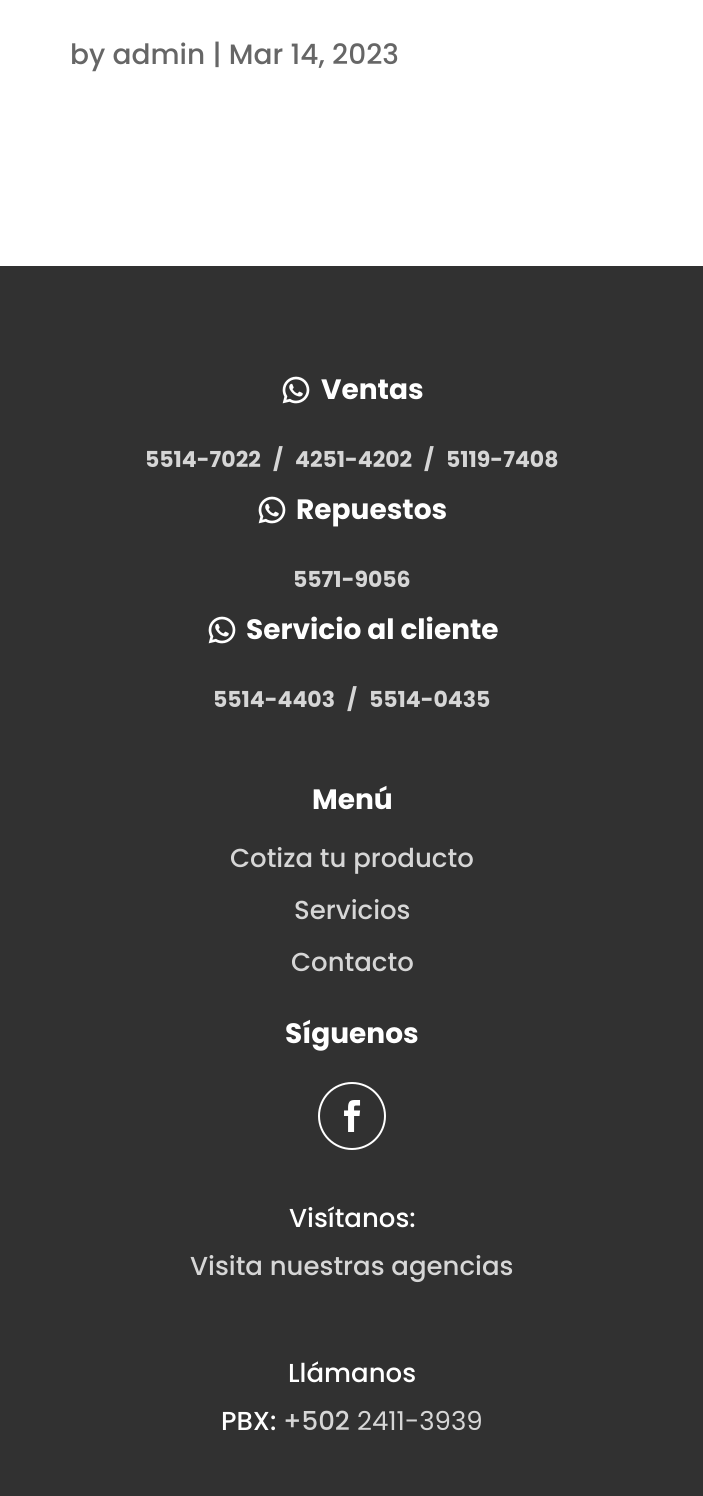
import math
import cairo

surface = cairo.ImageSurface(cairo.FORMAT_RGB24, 703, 1496)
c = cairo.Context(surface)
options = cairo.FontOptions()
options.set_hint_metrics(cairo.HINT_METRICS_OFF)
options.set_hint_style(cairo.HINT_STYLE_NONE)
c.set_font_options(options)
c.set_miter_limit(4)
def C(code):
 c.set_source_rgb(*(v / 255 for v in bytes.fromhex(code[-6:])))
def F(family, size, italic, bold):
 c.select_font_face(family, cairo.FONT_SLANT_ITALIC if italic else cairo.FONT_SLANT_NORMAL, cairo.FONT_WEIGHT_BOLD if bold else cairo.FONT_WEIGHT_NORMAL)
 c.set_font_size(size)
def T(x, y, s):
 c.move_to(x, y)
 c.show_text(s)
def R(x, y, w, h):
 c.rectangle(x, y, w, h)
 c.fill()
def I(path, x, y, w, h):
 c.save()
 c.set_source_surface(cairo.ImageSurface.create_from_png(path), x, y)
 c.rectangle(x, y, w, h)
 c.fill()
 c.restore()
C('ffffff')
c.paint()
F('Poppins Medium',28,0,0)
C('666666')
T(70,64,'by admin | Mar 14, 2023')
C('313131')
R(0,266,703,1230)
I('1.png',282,376,28,28)
F('Poppins',28,0,1)
C('ffffff')
T(321,399,'Ventas')
F('Poppins',22,0,1)
C('d6d6d6')
T(145,467,'5514-7022')
T(273,467,'/')
T(295,467,'4251-4202')
T(424,467,'/')
T(446,467,'5119-7408')
I('1.png',258,496,28,28)
F('Poppins',28,0,1)
C('ffffff')
T(296,519,'Repuestos')
F('Poppins',22,0,1)
C('d6d6d6')
T(293,587,'5571-9056')
I('1.png',208,616,28,28)
F('Poppins',28,0,1)
C('ffffff')
T(246,639,'Servicio al cliente')
F('Poppins',22,0,1)
C('d6d6d6')
T(213,707,'5514-4403')
T(347,707,'/')
T(369,707,'5514-0435')
F('Poppins',28,0,1)
C('ffffff')
T(312,809,'Menú')
F('Poppins Medium',26,0,0)
C('d6d6d6')
T(230,867,'Cotiza tu producto')
T(294,919,'Servicios')
T(291,971,'Contacto')
F('Poppins',28,0,1)
C('ffffff')
T(285,1043,'Síguenos')
c.new_path()
c.arc(352,1116,33,0,2 * math.pi)
c.stroke()
I('2.png',344,1100,17,32)
F('Poppins Medium',26,0,0)
T(289,1227,'Visítanos:')
C('d6d6d6')
T(190,1275,'Visita nuestras agencias')
C('ffffff')
T(288,1382,'Llámanos')
T(221,1430,'PBX:')
C('d6d6d6')
T(283,1430,'+502')
F('Poppins',26,0,0)
T(357,1430,'2411-3939')
surface.write_to_png('o.png')
